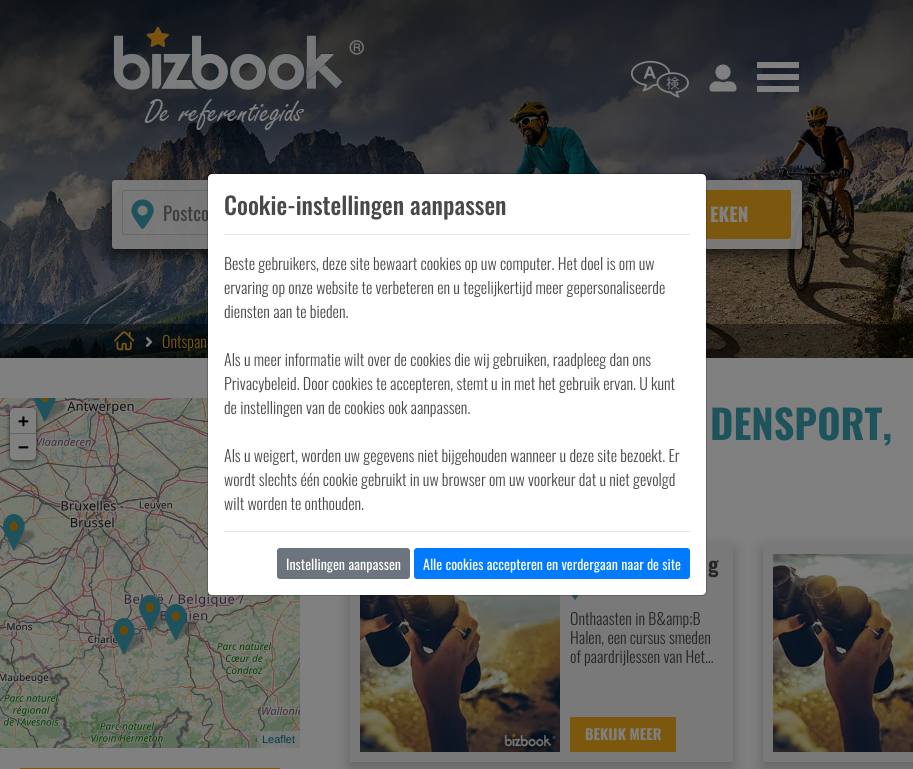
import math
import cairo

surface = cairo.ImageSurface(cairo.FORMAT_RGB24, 913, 769)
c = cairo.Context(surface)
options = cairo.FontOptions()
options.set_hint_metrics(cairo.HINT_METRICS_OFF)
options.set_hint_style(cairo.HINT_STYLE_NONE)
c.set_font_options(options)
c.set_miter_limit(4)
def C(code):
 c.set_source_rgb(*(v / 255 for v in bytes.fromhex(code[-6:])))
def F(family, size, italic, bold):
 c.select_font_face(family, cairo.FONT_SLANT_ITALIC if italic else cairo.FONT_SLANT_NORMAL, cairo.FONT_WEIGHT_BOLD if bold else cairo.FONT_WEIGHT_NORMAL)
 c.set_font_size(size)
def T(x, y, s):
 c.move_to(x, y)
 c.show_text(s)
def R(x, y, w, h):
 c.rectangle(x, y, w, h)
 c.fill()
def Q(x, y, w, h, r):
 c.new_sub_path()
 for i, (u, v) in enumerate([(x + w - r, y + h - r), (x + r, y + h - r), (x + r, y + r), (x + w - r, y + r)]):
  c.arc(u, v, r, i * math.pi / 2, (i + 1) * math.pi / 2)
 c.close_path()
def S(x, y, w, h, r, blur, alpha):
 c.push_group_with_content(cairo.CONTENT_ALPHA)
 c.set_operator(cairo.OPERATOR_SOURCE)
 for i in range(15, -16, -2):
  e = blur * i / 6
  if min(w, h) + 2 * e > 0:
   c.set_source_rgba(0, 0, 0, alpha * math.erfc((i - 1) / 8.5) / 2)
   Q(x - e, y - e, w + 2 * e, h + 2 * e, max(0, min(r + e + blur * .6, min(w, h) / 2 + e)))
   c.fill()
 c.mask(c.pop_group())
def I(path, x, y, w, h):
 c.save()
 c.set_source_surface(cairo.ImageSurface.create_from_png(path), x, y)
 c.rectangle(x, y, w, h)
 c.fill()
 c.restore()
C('808080')
c.paint()
I('1.png',0,0,913,358)
c.save()
c.set_fill_rule(cairo.FILL_RULE_EVEN_ODD)
c.new_path()
c.move_to(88,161)
c.line_to(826,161)
c.line_to(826,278)
c.line_to(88,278)
c.close_path()
c.move_to(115,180)
c.line_to(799,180)
c.curve_to(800.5,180,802,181.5,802,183)
c.line_to(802,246)
c.curve_to(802,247.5,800.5,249,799,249)
c.line_to(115,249)
c.curve_to(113.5,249,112,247.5,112,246)
c.line_to(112,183)
c.curve_to(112,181.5,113.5,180,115,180)
c.close_path()
c.clip()
C('000000')
S(112,185,690,69,3,7.5,.75)
c.restore()
c.set_source_rgba(0.502,0.502,0.502,0.9)
Q(112,180,690,69,3)
c.fill()
Q(122.5,190.5,143,44,1.5)
c.set_source_rgba(0.4,0.4,0.4,0.9)
c.set_line_width(1)
c.stroke()
F('Oswald',19,0,0)
C('3b3b3b')
T(163,221,'Postco')
C('7c580f')
Q(647,190,144,49,2)
c.fill()
c.set_source_rgba(0,0,0,0.4)
R(0,324,913,34)
I('11.png',68,546,232,202)
C('000000')
S(350,549,383,218,0,7.5,.25)
C('797979')
R(350,545,383,217)
C('ffffff')
Q(208,174,498,421,4)
c.fill()
I('9.png',68,398,140,148)
I('17.png',360,595,200,157)
I('18.png',571,595,8,5)
Q(207.5,173.5,499,422,4.5)
c.set_source_rgba(0,0,0,0.2)
c.stroke()
F('Oswald Medium',24,0,0)
C('494949')
T(224,215,'Cookie-instellingen aanpassen')
C('e6e6e6')
R(224,234,466,1)
F('Oswald Light',16,0,0)
C('494949')
T(224,270,'Beste gebruikers, deze site bewaart cookies op uw computer. Het doel is om uw')
T(224,294,'ervaring op onze website te verbeteren en u tegelijkertijd meer gepersonaliseerde')
T(224,318,'diensten aan te bieden.')
T(224,366,'Als u meer informatie wilt over de cookies die wij gebruiken, raadpleeg dan ons')
T(224,390,'Privacybeleid. Door cookies te accepteren, stemt u in met het gebruik ervan. U kunt')
T(224,414,'de instellingen van de cookies ook aanpassen.')
T(224,462,'Als u weigert, worden uw gegevens niet bijgehouden wanneer u deze site bezoekt. Er')
T(224,486,'wordt slechts één cookie gebruikt in uw browser om uw voorkeur dat u niet gevolgd')
T(224,510,'wilt worden te onthouden.')
C('e6e6e6')
R(224,531,466,1)
C('6c757d')
Q(277.5,548.5,132,30,2.5)
c.fill_preserve()
c.stroke()
F('Oswald',14,0,0)
C('ffffff')
T(286,570,'Instellingen aanpassen')
C('007bff')
Q(414.5,548.5,275,30,2.5)
c.fill_preserve()
c.stroke()
C('ffffff')
T(423,570,'Alle cookies accepteren en verdergaan naar de site')
I('2.png',113,26,251,104)
I('3.png',630,60,59,38)
I('4.png',709,64,28,28)
C('808080')
c.new_path()
c.move_to(757,62)
c.line_to(799,62)
c.line_to(799,68)
c.line_to(757,68)
c.close_path()
c.move_to(757,74)
c.line_to(799,74)
c.line_to(799,80)
c.line_to(757,80)
c.close_path()
c.move_to(757,86)
c.line_to(799,86)
c.line_to(799,92)
c.line_to(757,92)
c.close_path()
c.fill()
I('5.png',131,199,23,30)
F('Oswald',19,0,1)
T(710,222,'EKEN')
I('6.png',114,331,21,20)
I('7.png',145,337,8,10)
F('Oswald Light',16,0,0)
C('7c580f')
T(162,348,'Ontspan')
I('8.png',0,398,68,148)
I('10.png',0,546,68,202)
I('12.png',34,398,32,24)
I('13.png',3,514,32,37)
I('15.png',139,595,29,37)
I('14.png',113,618,32,37)
I('16.png',165,604,32,37)
C('000000')
S(10,409,26,52,4,2.5,.65)
C('808080')
c.new_path()
c.move_to(14,408)
c.line_to(32,408)
c.curve_to(34,408,36,410,36,412)
c.line_to(36,434)
c.line_to(10,434)
c.line_to(10,412)
c.curve_to(10,410,12,408,14,408)
c.close_path()
c.fill()
C('666666')
R(10,433,26,1)
F('DejaVu Sans Mono',18,0,1)
C('000000')
T(18,427,'+')
C('808080')
c.new_path()
c.move_to(10,434)
c.line_to(36,434)
c.line_to(36,456)
c.curve_to(36,458,34,460,32,460)
c.line_to(14,460)
c.curve_to(12,460,10,458,10,456)
c.close_path()
c.fill()
C('000000')
T(18,453,'−')
c.set_source_rgba(0.502,0.502,0.502,0.7)
R(257,731,43,17)
F('Liberation Sans',11,0,0)
C('003c54')
T(262,743,'Leaflet')
C('7c580f')
R(20,768,260,1)
F('Oswald',40,0,1)
C('1e535c')
T(710,440,'DENSPORT,')
F('Oswald',21,0,1)
C('252525')
T(708,573,'g')
F('Oswald Light',16,0,0)
T(570,625,'Onthaasten in B&amp;B')
T(570,644,'Halen, een cursus smeden')
T(570,663,'of paardrijlessen van Het…')
C('7c580f')
R(570,717,106,35)
F('Oswald',14.5,0,1)
C('808080')
T(585,740,'BEKIJK MEER')
C('000000')
S(763,549,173,218,0,7.5,.25)
C('797979')
R(763,545,150,217)
I('19.png',773,554,140,198)
surface.write_to_png('o.png')
